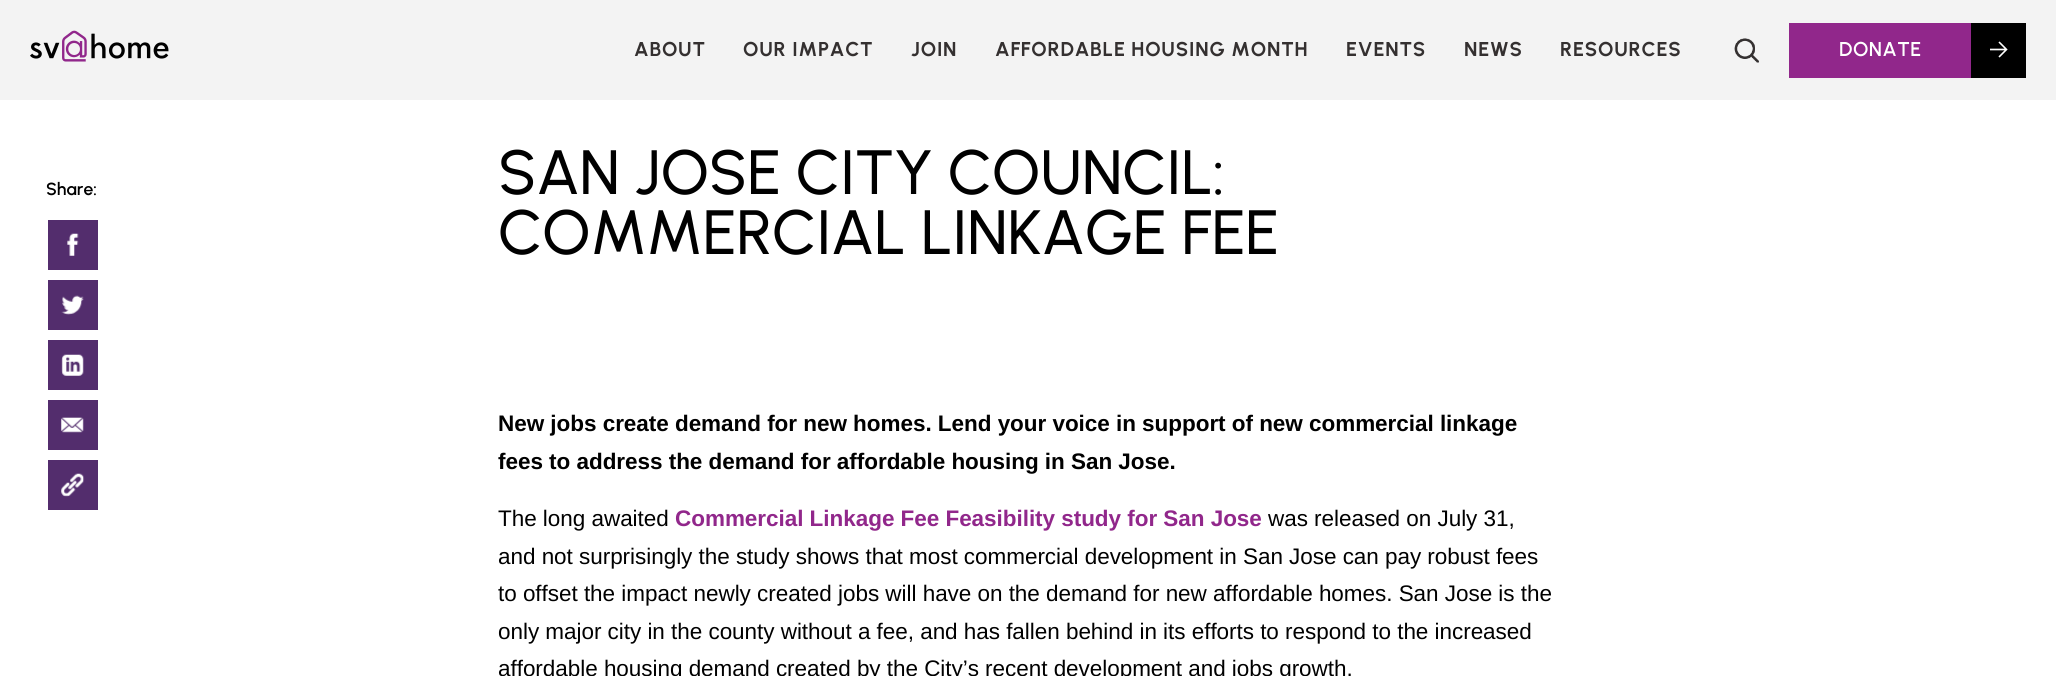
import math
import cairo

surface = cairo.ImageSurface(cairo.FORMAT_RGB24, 2056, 676)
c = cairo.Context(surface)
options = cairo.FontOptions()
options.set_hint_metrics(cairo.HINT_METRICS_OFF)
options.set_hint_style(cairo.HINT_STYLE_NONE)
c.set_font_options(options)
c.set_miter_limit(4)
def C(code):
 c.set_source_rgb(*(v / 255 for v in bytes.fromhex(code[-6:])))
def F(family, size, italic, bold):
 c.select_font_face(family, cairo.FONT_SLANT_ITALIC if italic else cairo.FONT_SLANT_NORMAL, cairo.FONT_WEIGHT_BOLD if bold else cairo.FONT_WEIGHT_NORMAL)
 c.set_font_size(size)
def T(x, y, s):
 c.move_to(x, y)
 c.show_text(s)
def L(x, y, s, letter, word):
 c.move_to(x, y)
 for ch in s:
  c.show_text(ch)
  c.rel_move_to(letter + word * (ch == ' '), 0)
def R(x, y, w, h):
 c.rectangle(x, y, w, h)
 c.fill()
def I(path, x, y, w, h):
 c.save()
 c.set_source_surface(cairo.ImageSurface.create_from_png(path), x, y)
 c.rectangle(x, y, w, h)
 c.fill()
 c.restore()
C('ffffff')
c.paint()
C('f3f3f3')
R(0,0,2056,100)
I('1.png',30,30,139,32)
F('Urbanist',20,0,1)
C('343030')
L(634,56,'ABOUT',.8,0)
L(743,56,'OUR IMPACT',.8,0)
L(911,56,'JOIN',.8,0)
L(995,56,'AFFORDABLE HOUSING MONTH',.8,0)
L(1346,56,'EVENTS',.8,0)
L(1464,56,'NEWS',.8,0)
L(1560,56,'RESOURCES',.8,0)
I('2.png',1734,38,25,25)
C('91278b')
R(1789,23,182,55)
F('Urbanist SemiBold',20,0,0)
C('ffffff')
L(1839,56,'DONATE',.5,0)
C('000000')
R(1971,23,55,55)
c.new_path()
c.move_to(1999,57)
c.line_to(2006.5,49.5)
c.line_to(1999,42)
c.move_to(1990,49.5)
c.line_to(2006.5,49.5)
C('ffffff')
c.set_line_width(1.6)
c.stroke()
F('Urbanist SemiBold',17.5,0,0)
C('000000')
T(46,195,'Share:')
C('532d6d')
R(48,220,50,50)
I('3.png',67,233,12,23)
R(48,280,50,50)
I('4.png',61,295,23,20)
R(48,340,50,50)
I('5.png',61,354,23,22)
R(48,400,50,50)
I('6.png',61,417,23,16)
R(48,460,50,50)
I('7.png',61,473,24,24)
F('Urbanist Medium',62.5,0,0)
C('000000')
T(498,194,'SAN JOSE CITY COUNCIL:')
T(498,254,'COMMERCIAL LINKAGE FEE')
F('Liberation Sans',22.5,0,1)
L(498,431,'New jobs create demand for new homes. Lend your voice in support of new commercial linkage',-.04,0)
L(498,469,'fees to address the demand for affordable housing in San Jose.',-.04,0)
F('Liberation Sans',22.5,0,0)
L(498,526,'The long awaited',-.04,0)
F('Liberation Sans',22.5,0,1)
C('91278b')
L(675,526,'Commercial Linkage Fee Feasibility study for San Jose',-.04,0)
F('Liberation Sans',22.5,0,0)
C('000000')
L(1268,526,'was released on July 31,',-.04,0)
L(498,564,'and not surprisingly the study shows that most commercial development in San Jose can pay robust fees',-.04,0)
L(498,601,'to offset the impact newly created jobs will have on the demand for new affordable homes. San Jose is the',-.04,0)
L(498,639,'only major city in the county without a fee, and has fallen behind in its efforts to respond to the increased',-.04,0)
L(498,676,'affordable housing demand created by the City’s recent development and jobs growth.',-.04,0)
surface.write_to_png('o.png')
